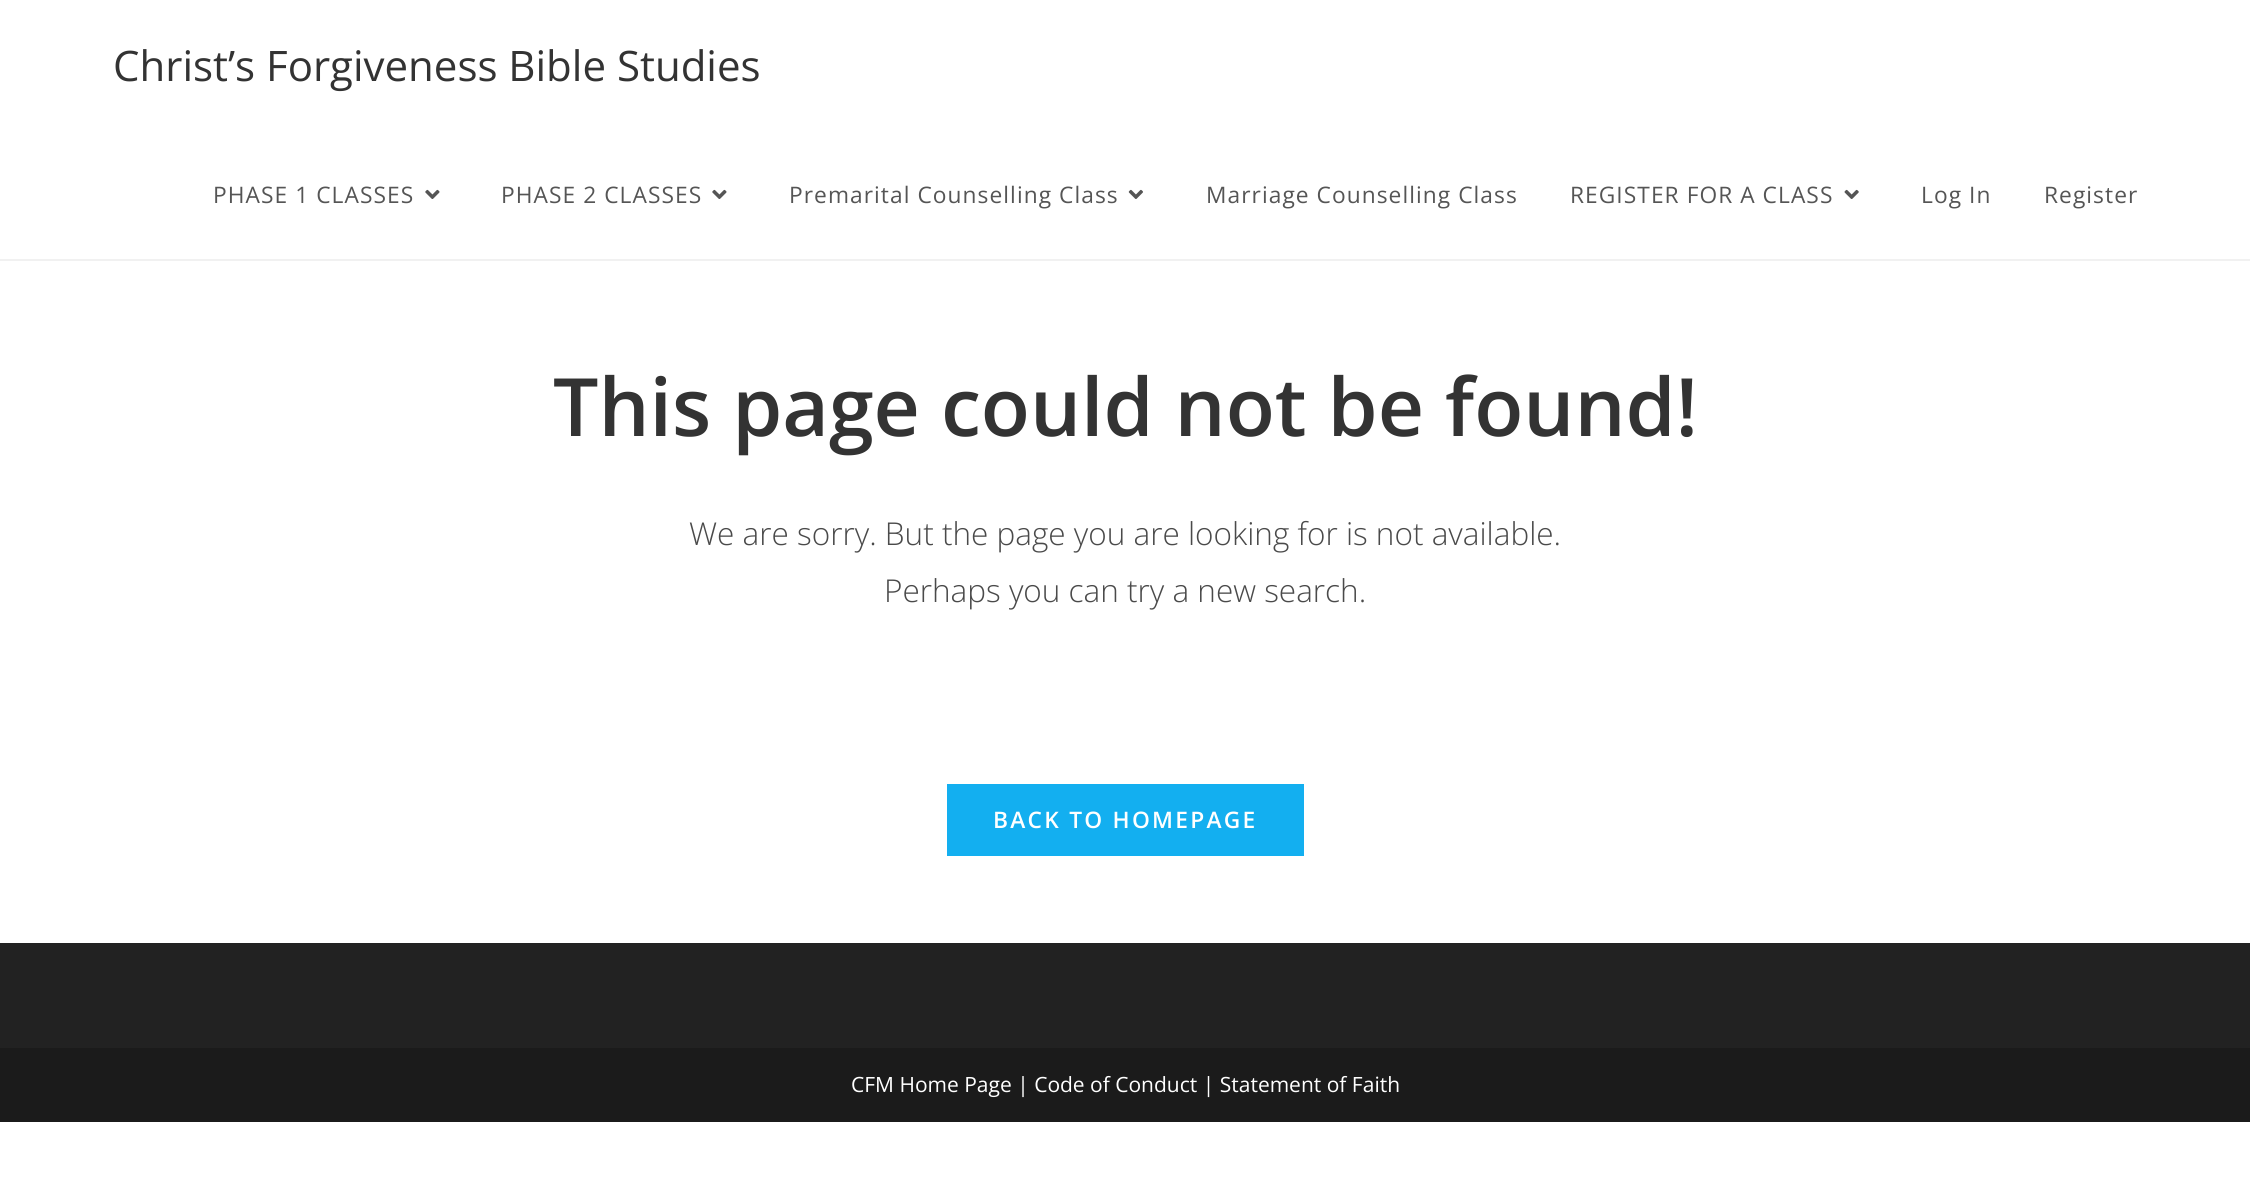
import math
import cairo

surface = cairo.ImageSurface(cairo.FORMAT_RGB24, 2250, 1203)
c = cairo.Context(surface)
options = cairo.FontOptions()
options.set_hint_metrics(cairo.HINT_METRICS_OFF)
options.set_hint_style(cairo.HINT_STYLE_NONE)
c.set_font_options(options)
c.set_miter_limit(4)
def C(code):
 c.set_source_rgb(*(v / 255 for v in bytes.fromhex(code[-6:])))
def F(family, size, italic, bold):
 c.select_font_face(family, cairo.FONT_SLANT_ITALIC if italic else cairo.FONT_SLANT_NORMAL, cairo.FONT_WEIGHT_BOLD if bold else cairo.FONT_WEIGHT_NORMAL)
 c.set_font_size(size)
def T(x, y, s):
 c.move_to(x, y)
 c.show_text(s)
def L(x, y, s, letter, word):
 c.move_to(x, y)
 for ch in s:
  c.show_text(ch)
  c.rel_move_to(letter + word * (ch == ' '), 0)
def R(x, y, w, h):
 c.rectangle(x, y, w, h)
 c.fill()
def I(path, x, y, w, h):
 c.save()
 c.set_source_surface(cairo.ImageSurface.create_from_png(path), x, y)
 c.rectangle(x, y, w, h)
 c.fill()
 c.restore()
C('ffffff')
c.paint()
C('f1f1f1')
R(0,259,2250,2)
F('Open Sans',42,0,0)
C('333333')
T(113,81,'Christ’s Forgiveness Bible Studies')
F('Open Sans',22.75,0,0)
C('555555')
L(213,203,'PHASE 1 CLASSES',1.05,0)
I('1.png',425,189,15,10)
L(501,203,'PHASE 2 CLASSES',1.05,0)
I('1.png',712,189,15,10)
L(789,203,'Premarital Counselling Class',1.05,0)
I('2.png',1128,189,15,10)
L(1206,203,'Marriage Counselling Class',1.05,0)
L(1570,203,'REGISTER FOR A CLASS',1.05,0)
I('3.png',1844,189,15,10)
L(1921,203,'Log In',1.05,0)
L(2044,203,'Register',1.05,0)
F('Open Sans SemiBold',80.5,0,0)
C('333333')
T(553,436,'This page could not be found!')
F('Open Sans Light',31.5,0,0)
C('4a4a4a')
T(689,545,'We are sorry. But the page you are looking for is not available.')
T(884,602,'Perhaps you can try a new search.')
C('13aff0')
R(947,784,357,72)
F('Open Sans SemiBold',22.75,0,0)
C('ffffff')
L(993,828,'BACK TO HOMEPAGE',2.25,0)
C('222222')
R(0,943,2250,105)
C('1b1b1b')
R(0,1048,2250,74)
F('Open Sans',21,0,0)
C('ffffff')
T(851,1092,'CFM Home Page | Code of Conduct | Statement of Faith')
surface.write_to_png('o.png')
